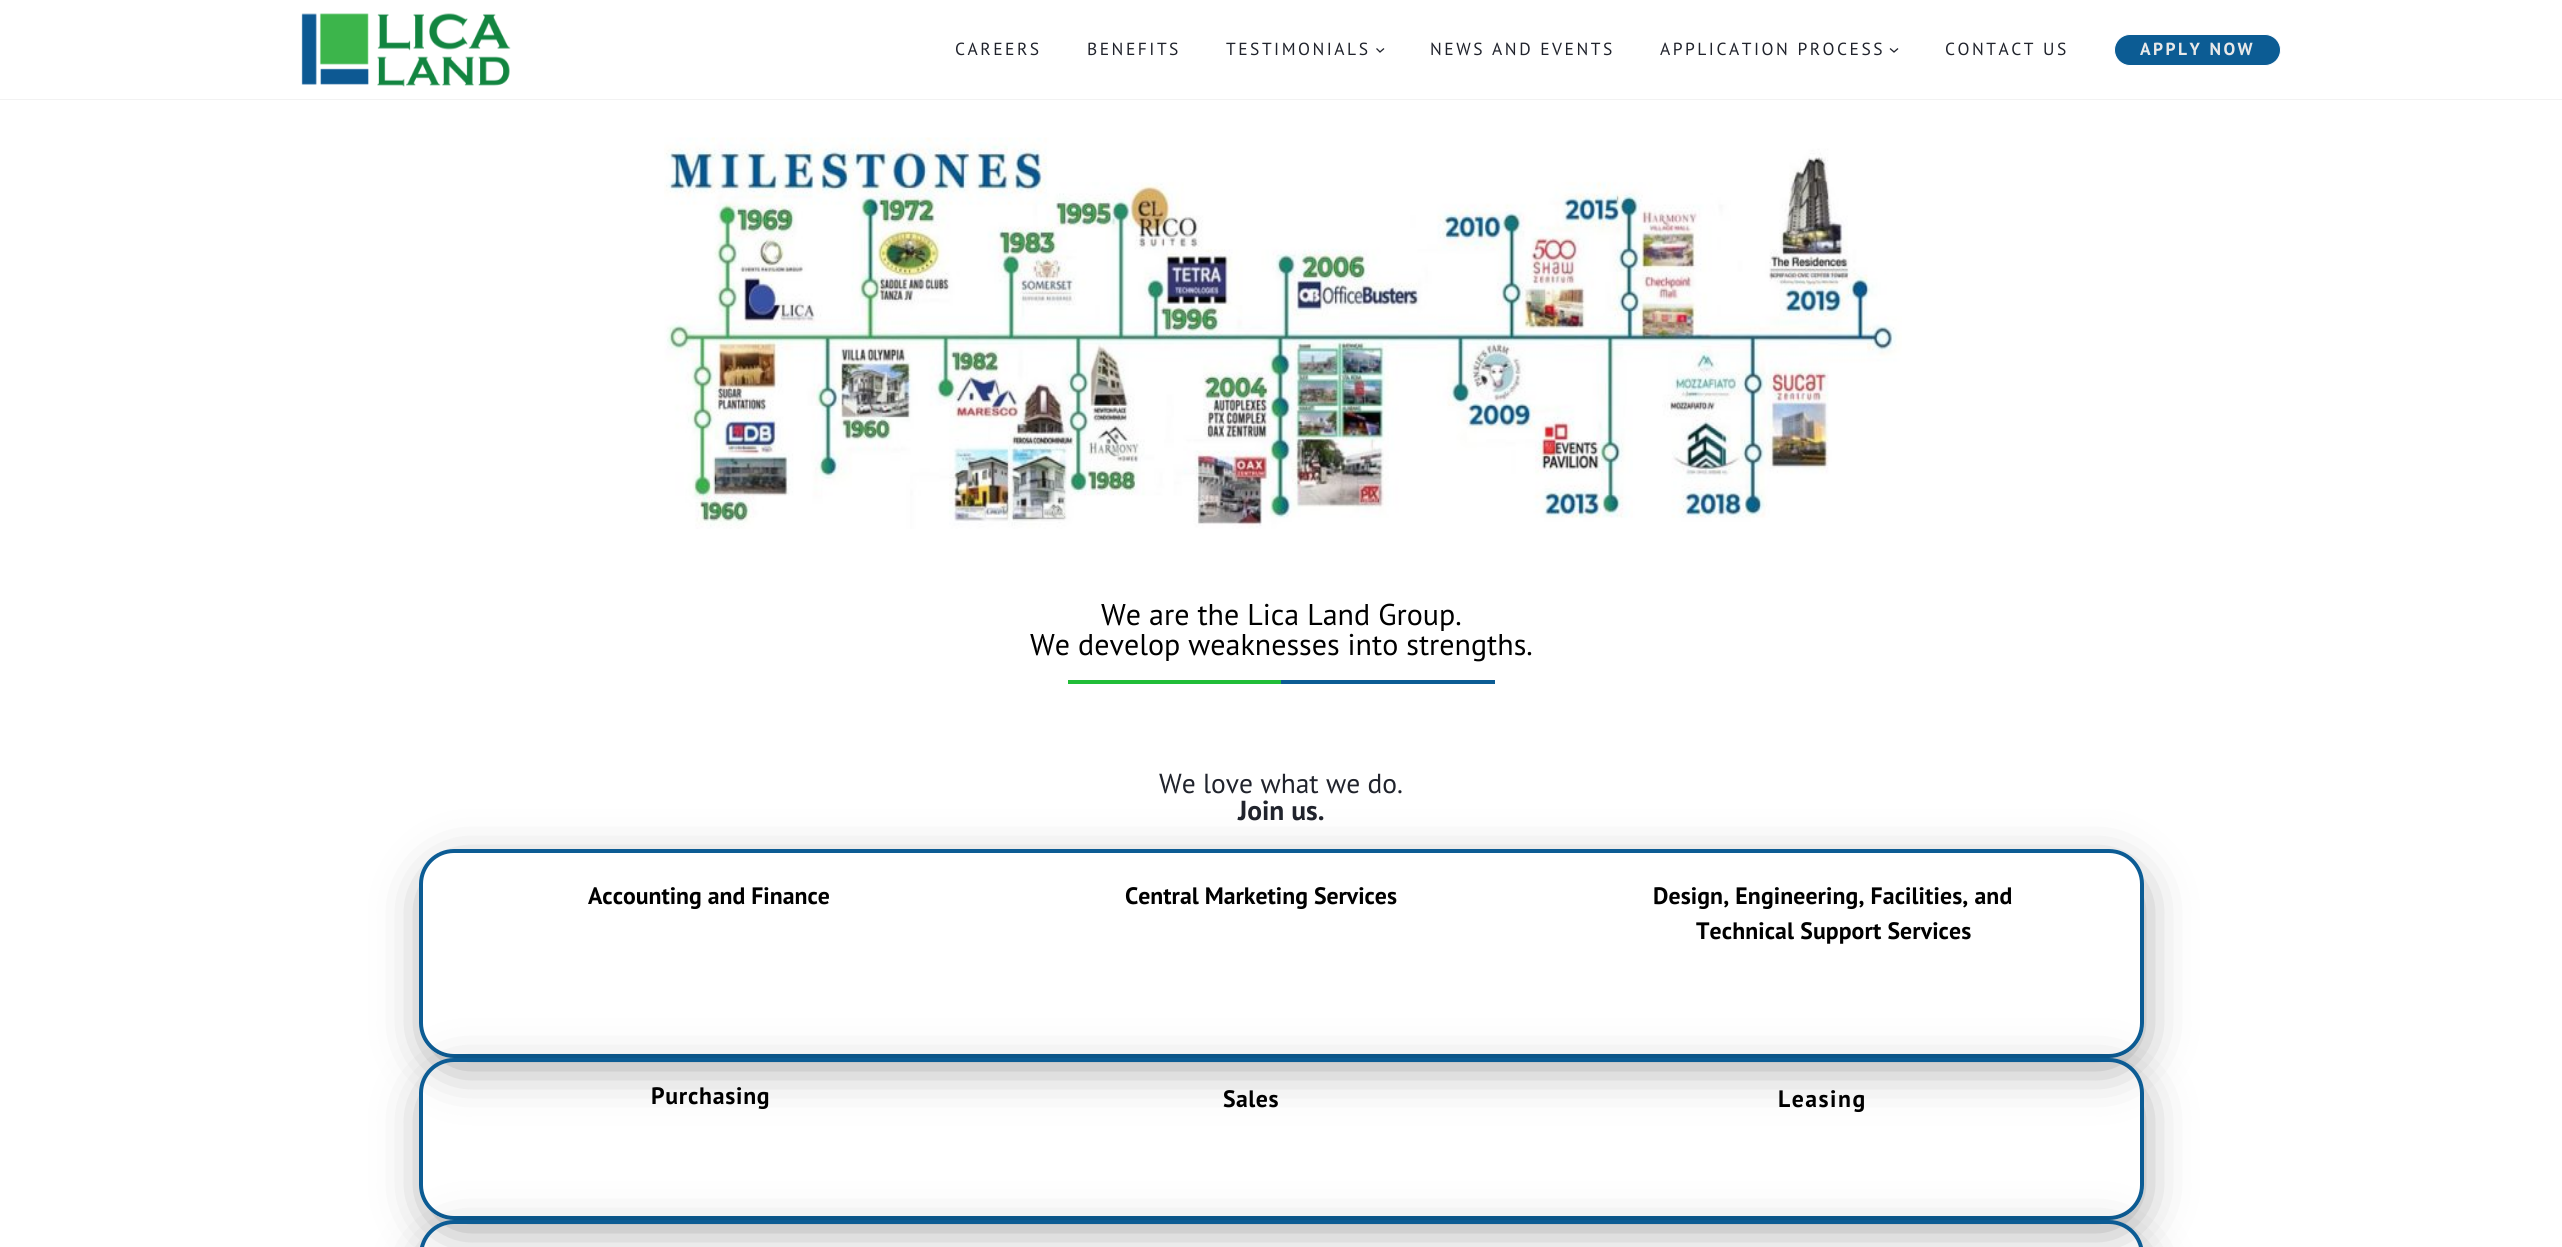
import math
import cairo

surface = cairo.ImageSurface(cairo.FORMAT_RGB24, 2562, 1247)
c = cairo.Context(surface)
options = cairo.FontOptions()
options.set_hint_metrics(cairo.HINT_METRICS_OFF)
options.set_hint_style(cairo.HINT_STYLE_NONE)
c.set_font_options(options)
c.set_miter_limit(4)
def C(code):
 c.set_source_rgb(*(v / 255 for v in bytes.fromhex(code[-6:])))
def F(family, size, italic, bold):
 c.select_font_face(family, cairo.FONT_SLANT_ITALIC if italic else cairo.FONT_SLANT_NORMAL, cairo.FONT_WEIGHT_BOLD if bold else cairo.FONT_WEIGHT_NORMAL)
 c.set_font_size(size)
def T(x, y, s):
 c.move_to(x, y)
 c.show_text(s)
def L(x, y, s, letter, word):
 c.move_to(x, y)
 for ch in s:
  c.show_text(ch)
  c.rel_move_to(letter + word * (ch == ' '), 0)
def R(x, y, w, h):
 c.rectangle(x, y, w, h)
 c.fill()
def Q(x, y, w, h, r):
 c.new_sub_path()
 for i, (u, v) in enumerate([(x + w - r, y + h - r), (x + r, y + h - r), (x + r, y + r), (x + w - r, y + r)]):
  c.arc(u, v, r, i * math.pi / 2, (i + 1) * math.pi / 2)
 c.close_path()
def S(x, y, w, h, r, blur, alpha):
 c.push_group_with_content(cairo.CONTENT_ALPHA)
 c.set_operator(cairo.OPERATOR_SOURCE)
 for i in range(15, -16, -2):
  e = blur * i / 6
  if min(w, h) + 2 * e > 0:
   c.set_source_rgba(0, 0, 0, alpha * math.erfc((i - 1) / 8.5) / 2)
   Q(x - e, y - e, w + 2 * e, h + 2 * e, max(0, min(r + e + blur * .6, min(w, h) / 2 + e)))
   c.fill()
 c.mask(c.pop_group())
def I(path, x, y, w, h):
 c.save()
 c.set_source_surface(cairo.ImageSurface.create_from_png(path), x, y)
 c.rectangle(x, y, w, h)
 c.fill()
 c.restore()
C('ffffff')
c.paint()
c.rectangle(-.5,-.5,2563,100)
C('f2f2f2')
c.set_line_width(1)
c.stroke()
I('1.png',301,13,210,74)
F('PT Sans',17.5,0,0)
C('20232c')
L(955,55,'CAREERS',2.5,0)
L(1087,55,'BENEFITS',2.5,0)
L(1226,55,'TESTIMONIALS',2.5,0)
c.new_path()
c.move_to(1376.5,48.5)
c.line_to(1380,52)
c.line_to(1384,48.5)
c.set_line_width(1.3)
c.stroke()
L(1430,55,'NEWS AND EVENTS',2.5,0)
L(1660,55,'APPLICATION PROCESS',2.5,0)
c.new_path()
c.move_to(1890,48.5)
c.line_to(1894,52)
c.line_to(1898,48.5)
c.stroke()
L(1945,55,'CONTACT US',2.5,0)
C('0c5c94')
Q(2114.5,34.5,166,31,15.5)
c.fill_preserve()
C('ffffff')
c.set_line_width(1)
c.stroke()
F('PT Sans',17.5,0,1)
C('e9e9e9')
L(2140,55,'APPLY NOW',2.5,0)
I('2.png',664,137,1238,392)
F('PT Sans',30,0,0)
C('000000')
T(1101,625,'We are the Lica Land Group.')
T(1030,655,'We develop weaknesses into strengths.')
C('21bd38')
R(1068,680,213,4)
C('0c5c94')
R(1281,680,214,4)
F('PT Sans',27.5,0,0)
C('20232c')
T(1159,793,'We love what we do.')
F('PT Sans',27.5,0,1)
T(1238,820,'Join us.')
c.save()
c.set_fill_rule(cairo.FILL_RULE_EVEN_ODD)
c.new_path()
c.move_to(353,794)
c.line_to(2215,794)
c.line_to(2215,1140)
c.line_to(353,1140)
c.close_path()
c.move_to(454,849)
c.line_to(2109,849)
c.curve_to(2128.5,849,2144,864.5,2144,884)
c.line_to(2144,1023)
c.curve_to(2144,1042.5,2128.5,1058,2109,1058)
c.line_to(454,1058)
c.curve_to(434.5,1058,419,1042.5,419,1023)
c.line_to(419,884)
c.curve_to(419,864.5,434.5,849,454,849)
c.close_path()
c.clip()
C('000000')
S(435,876,1698,182,21,27,.5)
c.restore()
Q(421,851,1721,205,33)
C('0c5c94')
c.set_line_width(4)
c.stroke()
F('PT Sans',23.75,0,1)
C('000000')
T(588,904,'Accounting and Finance')
T(1125,904,'Central Marketing Services')
L(1653,904,'Design, Engineering, Facilities, and',.1,0)
L(1696,939,'Technical Support Services',.1,0)
c.save()
c.set_fill_rule(cairo.FILL_RULE_EVEN_ODD)
c.new_path()
c.move_to(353,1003)
c.line_to(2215,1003)
c.line_to(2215,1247)
c.line_to(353,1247)
c.close_path()
c.move_to(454,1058)
c.line_to(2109,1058)
c.curve_to(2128.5,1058,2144,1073.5,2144,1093)
c.line_to(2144,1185)
c.curve_to(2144,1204.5,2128.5,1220,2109,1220)
c.line_to(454,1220)
c.curve_to(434.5,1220,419,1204.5,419,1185)
c.line_to(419,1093)
c.curve_to(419,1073.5,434.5,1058,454,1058)
c.close_path()
c.clip()
C('000000')
S(435,1085,1698,135,21,27,.5)
c.restore()
Q(421,1060,1721,158,33)
C('0c5c94')
c.stroke()
C('000000')
L(651,1104,'Purchasing',.75,0)
L(1223,1107,'Sales',.5,0)
L(1778,1107,'Leasing',1.5,0)
c.save()
c.set_fill_rule(cairo.FILL_RULE_EVEN_ODD)
c.new_path()
c.move_to(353,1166)
c.line_to(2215,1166)
c.line_to(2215,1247)
c.line_to(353,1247)
c.close_path()
c.move_to(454,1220)
c.line_to(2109,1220)
c.curve_to(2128.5,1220,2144,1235.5,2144,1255)
c.line_to(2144,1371)
c.curve_to(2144,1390.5,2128.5,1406,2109,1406)
c.line_to(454,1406)
c.curve_to(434.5,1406,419,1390.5,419,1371)
c.line_to(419,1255)
c.curve_to(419,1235.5,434.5,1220,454,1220)
c.close_path()
c.clip()
C('000000')
S(435,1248,1698,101,21,27,.5)
c.restore()
Q(421,1222,1721,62,33)
C('0c5c94')
c.stroke()
surface.write_to_png('o.png')
